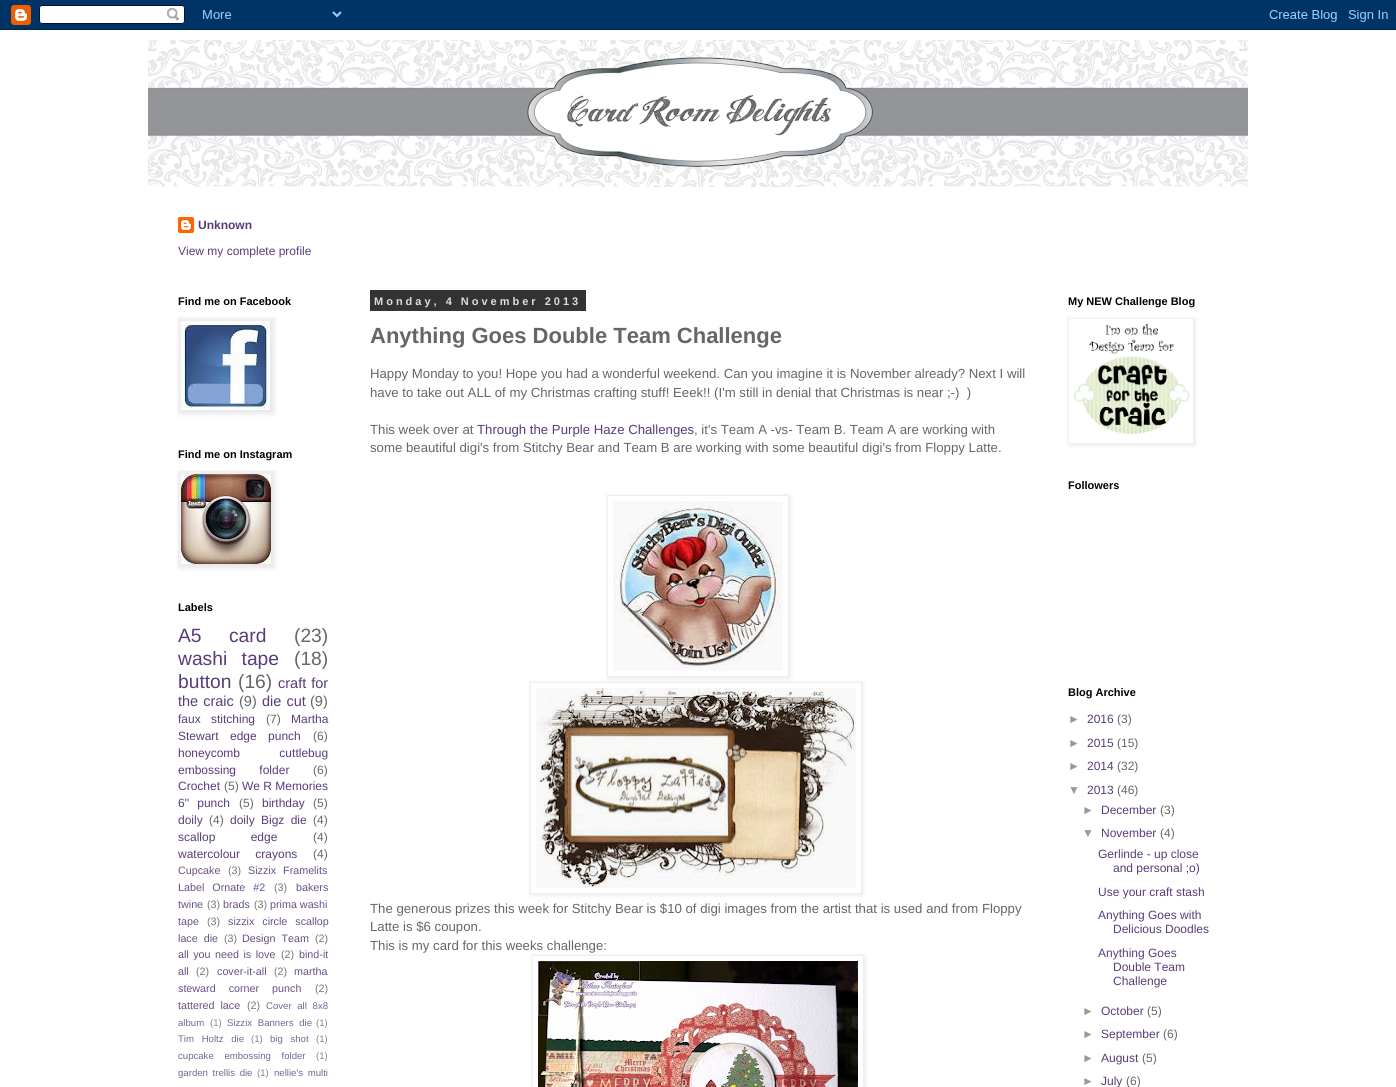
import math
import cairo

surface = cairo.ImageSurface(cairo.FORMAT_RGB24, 1396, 1087)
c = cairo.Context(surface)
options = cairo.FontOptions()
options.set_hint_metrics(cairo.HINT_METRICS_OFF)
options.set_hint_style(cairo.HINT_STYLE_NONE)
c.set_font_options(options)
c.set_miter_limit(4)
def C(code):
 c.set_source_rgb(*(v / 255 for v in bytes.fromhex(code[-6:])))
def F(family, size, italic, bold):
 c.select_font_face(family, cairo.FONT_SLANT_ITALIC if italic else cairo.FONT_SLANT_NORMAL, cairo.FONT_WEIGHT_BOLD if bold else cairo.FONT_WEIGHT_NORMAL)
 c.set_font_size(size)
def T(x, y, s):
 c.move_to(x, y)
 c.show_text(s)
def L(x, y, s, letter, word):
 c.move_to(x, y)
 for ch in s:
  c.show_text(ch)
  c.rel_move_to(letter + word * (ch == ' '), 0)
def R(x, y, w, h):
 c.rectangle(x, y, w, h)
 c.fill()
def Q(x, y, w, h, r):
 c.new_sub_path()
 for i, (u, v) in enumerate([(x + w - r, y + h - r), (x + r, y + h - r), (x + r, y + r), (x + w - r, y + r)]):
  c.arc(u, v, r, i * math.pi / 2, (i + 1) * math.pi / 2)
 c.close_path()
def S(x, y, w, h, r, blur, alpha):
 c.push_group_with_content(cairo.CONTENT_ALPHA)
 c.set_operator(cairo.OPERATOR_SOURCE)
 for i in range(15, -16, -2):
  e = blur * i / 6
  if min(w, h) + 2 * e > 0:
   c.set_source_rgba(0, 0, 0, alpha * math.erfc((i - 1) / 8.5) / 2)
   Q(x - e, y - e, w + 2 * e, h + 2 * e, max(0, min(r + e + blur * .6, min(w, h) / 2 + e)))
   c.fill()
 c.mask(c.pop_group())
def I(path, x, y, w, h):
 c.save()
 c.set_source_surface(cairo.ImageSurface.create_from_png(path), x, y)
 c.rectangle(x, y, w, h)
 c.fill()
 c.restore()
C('ffffff')
c.paint()
I('1.png',0,0,1396,30)
I('2.png',148,40,1100,147)
I('3.png',178,217,16,16)
F('Liberation Sans',12,0,1)
C('593c79')
T(198,229,'Unknown')
F('Liberation Sans',12,0,0)
T(178,255,'View my complete profile')
F('Liberation Sans',11,0,1)
C('000000')
T(178,305,'Find me on Facebook')
C('000000')
S(179,319,95,95,0,2.5,.1)
c.rectangle(178.5,318.5,94,94)
C('eeeeee')
c.set_line_width(1)
c.stroke()
I('4.png',181,321,89,89)
C('000000')
T(178,458,'Find me on Instagram')
C('000000')
S(179,472,96,96,0,2.5,.1)
c.rectangle(178.5,471.5,95,95)
C('eeeeee')
c.stroke()
I('5.png',181,474,90,90)
C('000000')
T(178,611,'Labels')
F('Liberation Sans',19.25,0,0)
C('593c79')
L(178,642,'A5 card',0,22)
C('666666')
T(294,642,'(23)')
C('593c79')
L(178,665,'washi tape',0,9)
C('666666')
T(294,665,'(18)')
C('593c79')
T(178,688,'button')
C('666666')
T(238,688,'(16)')
F('Liberation Sans',14.5,0,0)
C('593c79')
L(278,688,'craft for',0,1)
L(178,706,'the craic',0,1)
C('666666')
T(239,706,'(9)')
C('593c79')
L(262,706,'die cut',0,1)
C('666666')
T(310,706,'(9)')
F('Liberation Sans',12,0,0)
C('593c79')
L(178,723,'faux stitching',0,7)
C('666666')
T(266,723,'(7)')
C('593c79')
T(291,723,'Martha')
L(178,740,'Stewart edge punch',0,8)
C('666666')
T(313,740,'(6)')
C('593c79')
L(178,757,'honeycomb cuttlebug',0,36)
L(178,774,'embossing folder',0,20)
C('666666')
T(313,774,'(6)')
C('593c79')
T(178,790,'Crochet')
C('666666')
T(224,790,'(5)')
C('593c79')
T(242,790,'We R Memories')
L(178,807,'6" punch',0,5)
C('666666')
T(239,807,'(5)')
C('593c79')
T(262,807,'birthday')
C('666666')
T(313,807,'(5)')
C('593c79')
T(178,824,'doily')
C('666666')
T(209,824,'(4)')
C('593c79')
L(230,824,'doily Bigz die',0,3)
C('666666')
T(313,824,'(4)')
C('593c79')
L(178,841,'scallop edge',0,32)
C('666666')
T(313,841,'(4)')
C('593c79')
L(178,858,'watercolour crayons',0,12)
C('666666')
T(313,858,'(4)')
F('Liberation Sans',10.75,0,0)
C('6a5086')
T(178,874,'Cupcake')
C('757575')
T(228,874,'(3)')
C('6a5086')
L(248,874,'Sizzix Framelits',0,4)
L(178,891,'Label Ornate #2',0,5)
C('757575')
T(274,891,'(3)')
C('6a5086')
T(296,891,'bakers')
T(178,908,'twine')
C('757575')
T(207,908,'(3)')
C('6a5086')
T(223,908,'brads')
C('757575')
T(254,908,'(3)')
C('6a5086')
T(270,908,'prima washi')
T(178,925,'tape')
C('757575')
T(207,925,'(3)')
C('6a5086')
L(228,925,'sizzix circle scallop',0,5)
L(178,942,'lace die',0,3)
C('757575')
T(224,942,'(3)')
C('6a5086')
L(242,942,'Design Team',0,3)
C('757575')
T(315,942,'(2)')
C('6a5086')
L(178,958,'all you need is love',0,1.5)
C('757575')
T(281,958,'(2)')
C('6a5086')
T(299,958,'bind-it')
T(178,975,'all')
C('757575')
T(196,975,'(2)')
C('6a5086')
T(217,975,'cover-it-all')
C('757575')
T(274,975,'(2)')
C('6a5086')
T(294,975,'martha')
L(178,992,'steward corner punch',0,10)
C('757575')
T(315,992,'(2)')
C('6a5086')
L(178,1009,'tattered lace',0,3)
C('757575')
T(247,1009,'(2)')
F('Liberation Sans',9.6,0,0)
C('7a6394')
L(266,1009,'Cover all 8x8',0,3)
T(178,1026,'album')
C('858585')
T(210,1026,'(1)')
C('7a6394')
L(227,1026,'Sizzix Banners die',0,3)
C('858585')
T(316,1026,'(1)')
C('7a6394')
L(178,1042,'Tim Holtz die',0,5)
C('858585')
T(251,1042,'(1)')
C('7a6394')
L(270,1042,'big shot',0,5)
C('858585')
T(316,1042,'(1)')
C('7a6394')
L(178,1059,'cupcake embossing folder',0,8)
C('858585')
T(316,1059,'(1)')
C('7a6394')
L(178,1076,'garden trellis die',0,2)
C('858585')
T(257,1076,'(1)')
C('7a6394')
L(274,1076,'nellie\'s multi',0,2)
C('333333')
R(370,290,216,21)
F('Liberation Sans',11,0,1)
C('dddddd')
L(374,305,'Monday, 4 November 2013',3,0)
F('Liberation Sans',22,0,1)
C('666666')
T(370,343,'Anything Goes Double Team Challenge')
F('Liberation Sans',13.2,0,0)
T(370,378,'Happy Monday to you! Hope you had a wonderful weekend. Can you imagine it is November already? Next I will')
T(370,397,'have to take out ALL of my Christmas crafting stuff! Eeek!! (I\'m still in denial that Christmas is near ;-)  )')
T(370,434,'This week over at')
C('593c79')
T(477,434,'Through the Purple Haze Challenges')
C('666666')
T(694,434,', it\'s Team A -vs- Team B. Team A are working with')
T(370,452,'some beautiful digi\'s from Stitchy Bear and Team B are working with some beautiful digi\'s from Floppy Latte.')
c.save()
c.set_fill_rule(cairo.FILL_RULE_EVEN_ODD)
c.new_path()
c.move_to(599,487)
c.line_to(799,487)
c.line_to(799,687)
c.line_to(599,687)
c.close_path()
c.move_to(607,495)
c.line_to(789,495)
c.line_to(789,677)
c.line_to(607,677)
c.close_path()
c.clip()
C('000000')
S(608,496,182,182,0,2.5,.1)
c.restore()
c.rectangle(607.5,495.5,181,181)
C('eeeeee')
c.stroke()
I('6.png',613,501,170,170)
c.save()
c.set_fill_rule(cairo.FILL_RULE_EVEN_ODD)
c.new_path()
c.move_to(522,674)
c.line_to(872,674)
c.line_to(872,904)
c.line_to(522,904)
c.close_path()
c.move_to(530,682)
c.line_to(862,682)
c.line_to(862,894)
c.line_to(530,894)
c.close_path()
c.clip()
C('000000')
S(531,683,332,212,0,2.5,.1)
c.restore()
c.rectangle(530.5,682.5,331,211)
c.stroke()
I('7.png',536,688,320,200)
C('666666')
T(370,913,'The generous prizes this week for Stitchy Bear is $10 of digi images from the artist that is used and from Floppy')
T(370,931,'Latte is $6 coupon.')
T(370,950,'This is my card for this weeks challenge:')
c.save()
c.set_fill_rule(cairo.FILL_RULE_EVEN_ODD)
c.new_path()
c.move_to(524,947)
c.line_to(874,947)
c.line_to(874,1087)
c.line_to(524,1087)
c.close_path()
c.move_to(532,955)
c.line_to(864,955)
c.line_to(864,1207)
c.line_to(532,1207)
c.close_path()
c.clip()
C('000000')
S(533,956,332,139,0,2.5,.1)
c.restore()
c.rectangle(532.5,955.5,331,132)
C('eeeeee')
c.stroke()
I('8.png',538,961,320,126)
F('Liberation Sans',11,0,1)
C('000000')
T(1068,305,'My NEW Challenge Blog')
c.save()
c.set_fill_rule(cairo.FILL_RULE_EVEN_ODD)
c.new_path()
c.move_to(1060,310)
c.line_to(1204,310)
c.line_to(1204,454)
c.line_to(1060,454)
c.close_path()
c.move_to(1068,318)
c.line_to(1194,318)
c.line_to(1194,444)
c.line_to(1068,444)
c.close_path()
c.clip()
C('000000')
S(1069,319,126,126,0,2.5,.1)
c.restore()
c.rectangle(1068.5,318.5,125,125)
C('eeeeee')
c.stroke()
I('9.png',1074,323,116,112)
C('000000')
T(1068,489,'Followers')
T(1068,696,'Blog Archive')
F('Liberation Sans',12,0,0)
C('999999')
T(1068,723,'►')
C('593c79')
T(1087,723,'2016')
C('666666')
T(1117,723,'(3)')
C('999999')
T(1068,747,'►')
C('593c79')
T(1087,747,'2015')
C('666666')
T(1117,747,'(15)')
C('999999')
T(1068,770,'►')
C('593c79')
T(1087,770,'2014')
C('666666')
T(1117,770,'(32)')
C('999999')
T(1068,794,'▼')
C('593c79')
T(1087,794,'2013')
C('666666')
T(1117,794,'(46)')
C('999999')
T(1082,814,'►')
C('593c79')
T(1101,814,'December')
C('666666')
T(1160,814,'(3)')
C('999999')
T(1082,837,'▼')
C('593c79')
T(1101,837,'November')
C('666666')
T(1160,837,'(4)')
C('593c79')
T(1098,858,'Gerlinde - up close')
T(1113,872,'and personal ;o)')
T(1098,896,'Use your craft stash')
T(1098,919,'Anything Goes with')
T(1113,933,'Delicious Doodles')
T(1098,957,'Anything Goes')
T(1113,971,'Double Team')
T(1113,985,'Challenge')
C('999999')
T(1082,1015,'►')
C('593c79')
T(1101,1015,'October')
C('666666')
T(1147,1015,'(5)')
C('999999')
T(1082,1038,'►')
C('593c79')
T(1101,1038,'September')
C('666666')
T(1163,1038,'(6)')
C('999999')
T(1082,1062,'►')
C('593c79')
T(1101,1062,'August')
C('666666')
T(1142,1062,'(5)')
C('999999')
T(1082,1085,'►')
C('593c79')
T(1101,1085,'July')
C('666666')
T(1126,1085,'(6)')
surface.write_to_png('o.png')
